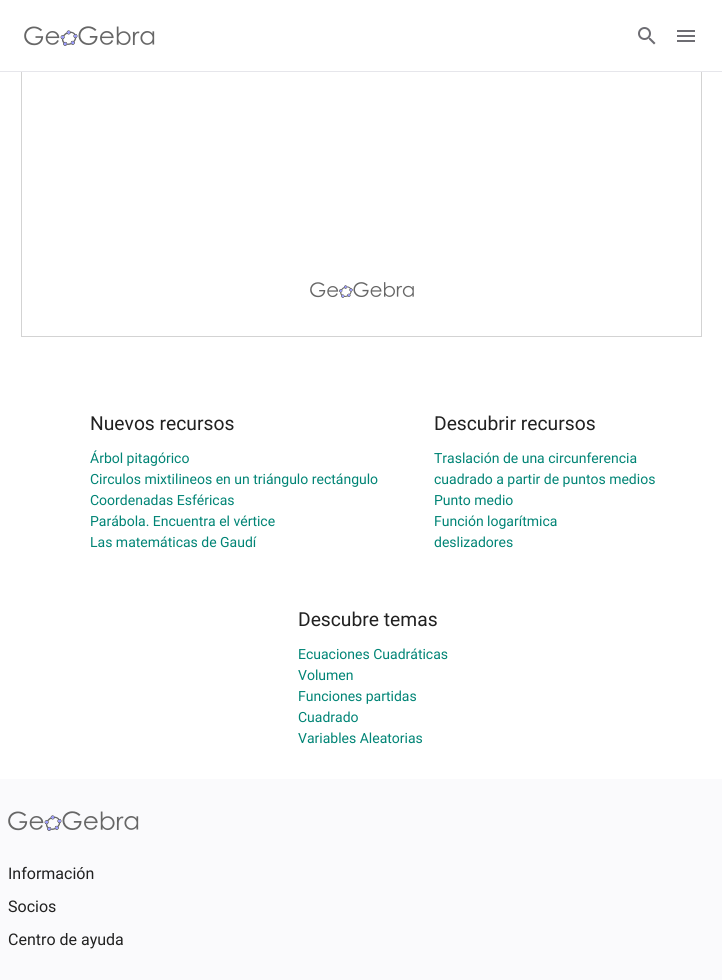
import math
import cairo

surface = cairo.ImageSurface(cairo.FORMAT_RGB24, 722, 980)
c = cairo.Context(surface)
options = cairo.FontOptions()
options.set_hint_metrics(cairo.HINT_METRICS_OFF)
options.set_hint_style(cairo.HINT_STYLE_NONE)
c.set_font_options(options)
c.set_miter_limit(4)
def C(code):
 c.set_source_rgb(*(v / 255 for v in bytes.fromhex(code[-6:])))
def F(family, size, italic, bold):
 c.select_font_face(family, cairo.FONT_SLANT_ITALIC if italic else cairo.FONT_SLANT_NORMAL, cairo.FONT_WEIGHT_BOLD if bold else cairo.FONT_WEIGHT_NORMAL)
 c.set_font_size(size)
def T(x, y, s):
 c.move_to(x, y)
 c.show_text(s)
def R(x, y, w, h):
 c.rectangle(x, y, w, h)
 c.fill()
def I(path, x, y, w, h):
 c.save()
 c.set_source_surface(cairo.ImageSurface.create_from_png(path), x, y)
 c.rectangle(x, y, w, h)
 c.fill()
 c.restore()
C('ffffff')
c.paint()
I('4.png',310,282,104,16)
c.rectangle(21.5,47.5,680,289)
C('d3d3d3')
c.set_line_width(1)
c.stroke()
C('ffffff')
R(21,47,681,24)
C('e6e6eb')
R(0,71,722,1)
I('1.png',24,26,131,20)
I('2.png',638,27,18,18)
I('3.png',677,30,18,12)
F('Roboto',19.25,0,0)
C('212121')
T(90,430,'Nuevos recursos')
F('Roboto',14,0,0)
C('008475')
T(90,463,'Árbol pitagórico')
T(90,484,'Circulos mixtilineos en un triángulo rectángulo')
T(90,505,'Coordenadas Esféricas')
T(90,526,'Parábola. Encuentra el vértice')
T(90,547,'Las matemáticas de Gaudí')
F('Roboto',19.25,0,0)
C('212121')
T(434,430,'Descubrir recursos')
F('Roboto',14,0,0)
C('008475')
T(434,463,'Traslación de una circunferencia')
T(434,484,'cuadrado a partir de puntos medios')
T(434,505,'Punto medio')
T(434,526,'Función logarítmica')
T(434,547,'deslizadores')
F('Roboto',19.25,0,0)
C('212121')
T(298,626,'Descubre temas')
F('Roboto',14,0,0)
C('008475')
T(298,659,'Ecuaciones Cuadráticas')
T(298,680,'Volumen')
T(298,701,'Funciones partidas')
T(298,722,'Cuadrado')
T(298,743,'Variables Aleatorias')
C('fafafc')
R(0,779,722,201)
I('5.png',8,811,131,20)
F('Roboto',16,0,0)
C('212121')
T(8,879,'Información')
T(8,912,'Socios')
T(8,945,'Centro de ayuda')
surface.write_to_png('o.png')
